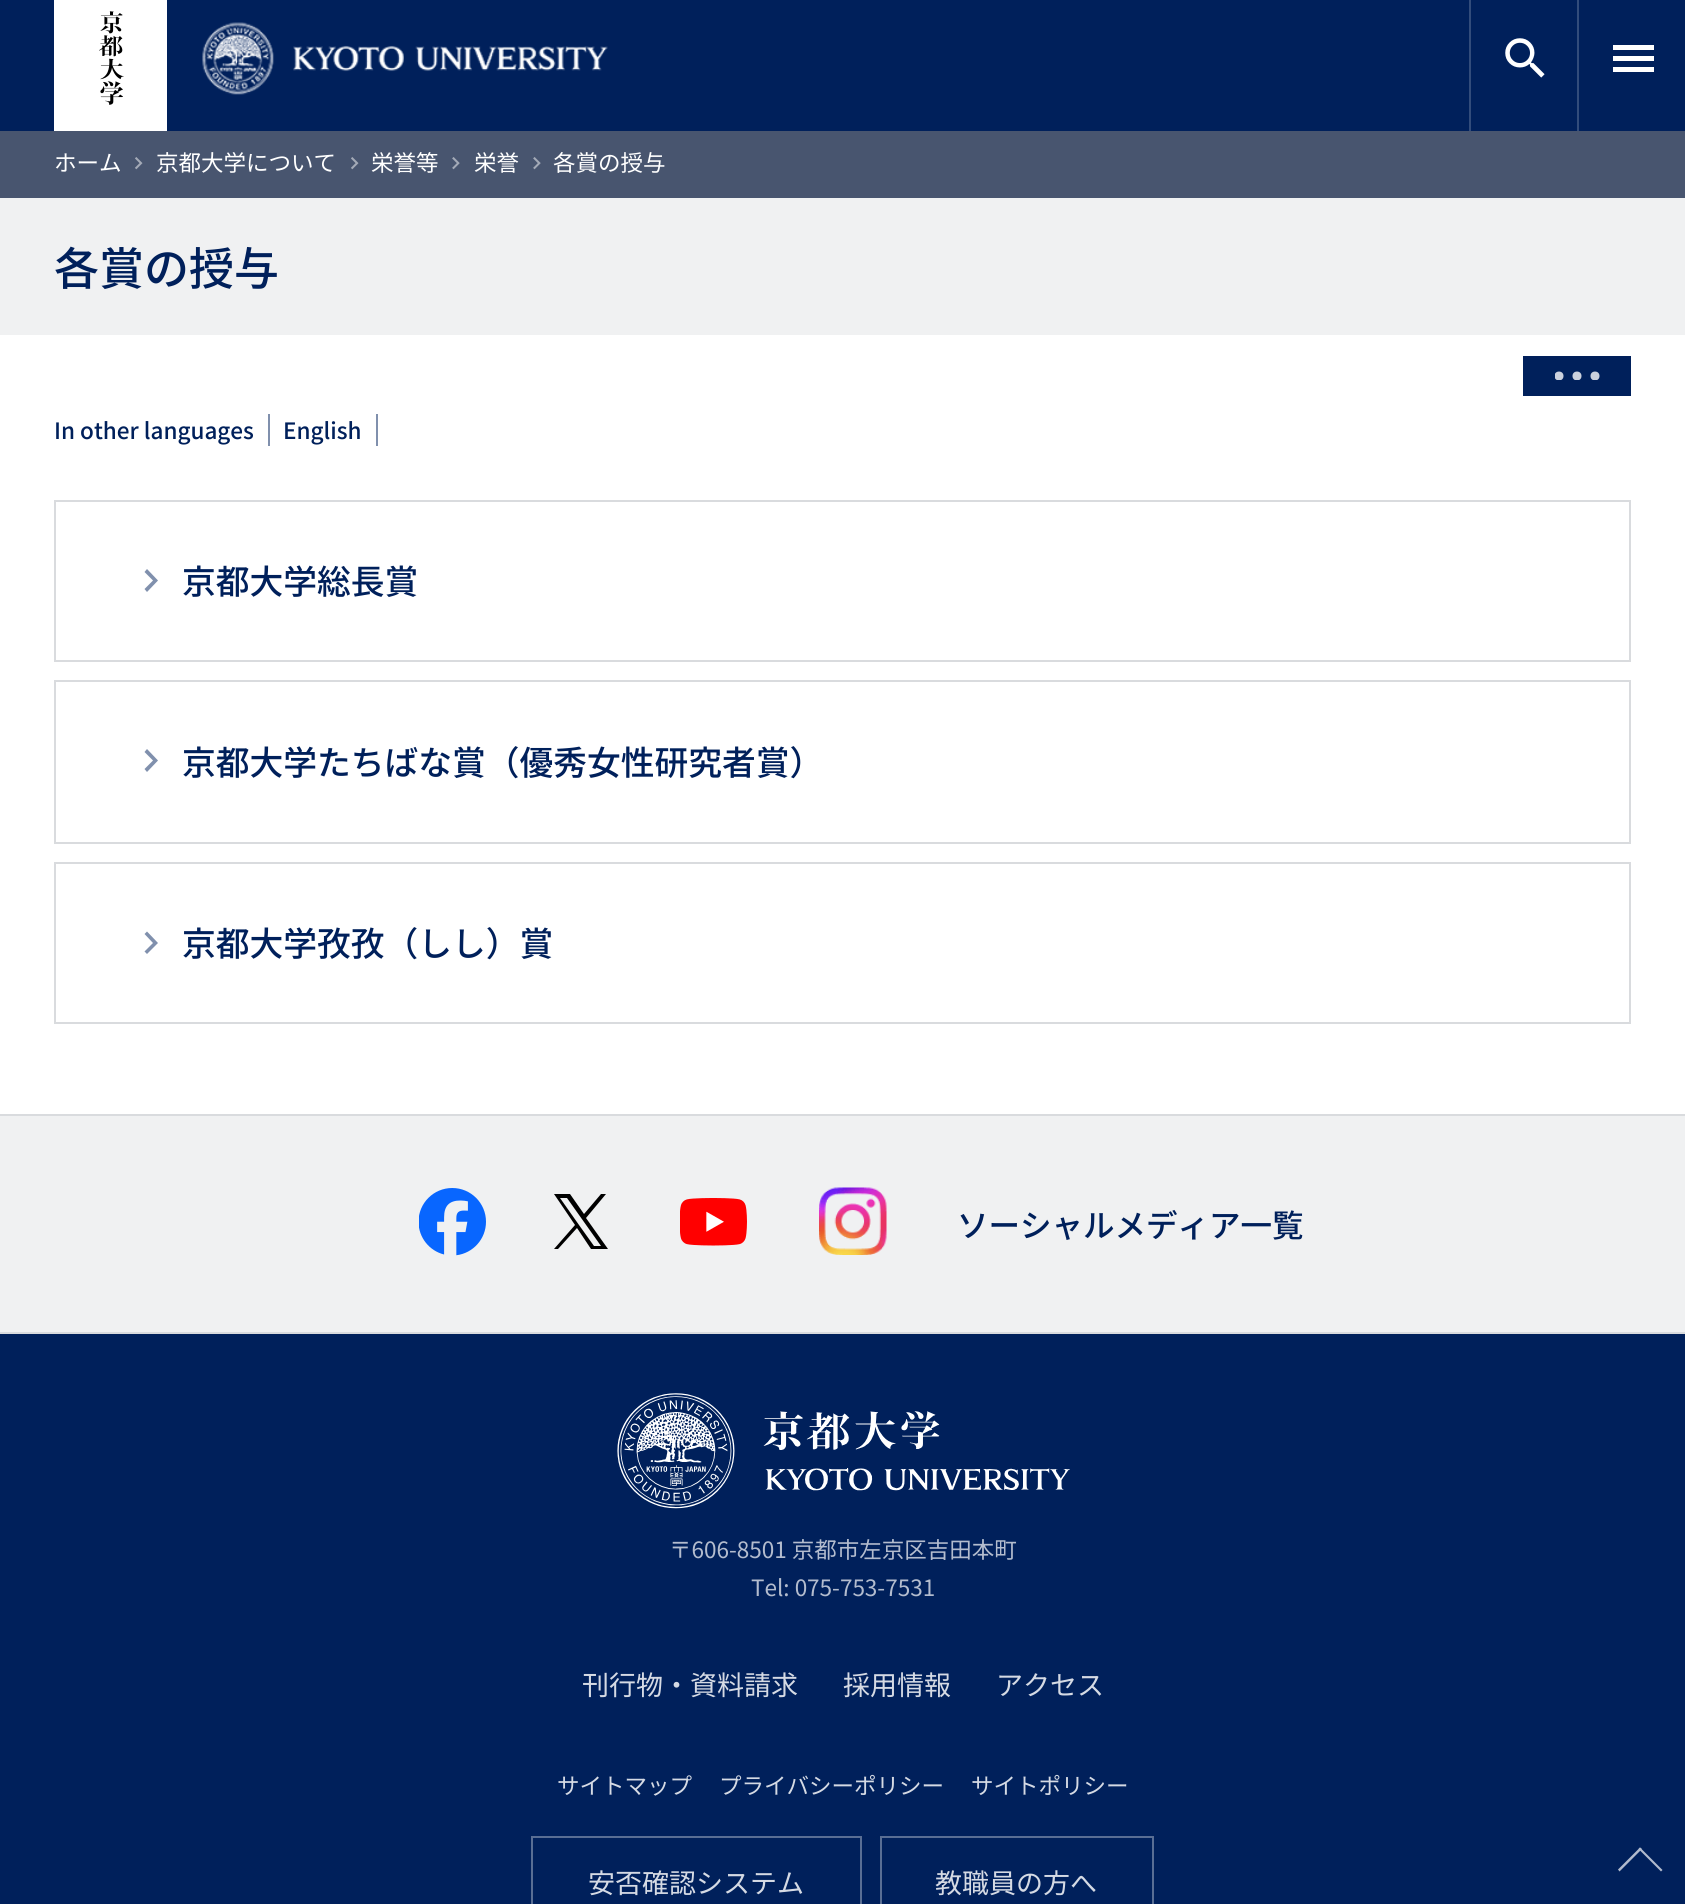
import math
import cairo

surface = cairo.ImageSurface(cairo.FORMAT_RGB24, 1685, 1904)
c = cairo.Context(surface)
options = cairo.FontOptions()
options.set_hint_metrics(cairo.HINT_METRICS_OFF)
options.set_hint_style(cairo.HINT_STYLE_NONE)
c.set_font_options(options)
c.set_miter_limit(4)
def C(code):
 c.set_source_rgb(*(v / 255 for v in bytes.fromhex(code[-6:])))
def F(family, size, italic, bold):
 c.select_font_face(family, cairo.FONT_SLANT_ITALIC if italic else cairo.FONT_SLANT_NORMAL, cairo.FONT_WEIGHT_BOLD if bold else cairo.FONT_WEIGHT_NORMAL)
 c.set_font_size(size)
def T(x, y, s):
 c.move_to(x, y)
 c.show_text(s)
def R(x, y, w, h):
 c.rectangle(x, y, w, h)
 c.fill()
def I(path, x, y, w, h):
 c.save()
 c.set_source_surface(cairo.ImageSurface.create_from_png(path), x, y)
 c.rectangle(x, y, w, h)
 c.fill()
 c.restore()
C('ffffff')
c.paint()
C('00205b')
R(0,0,1685,131)
C('ffffff')
R(54,0,113,131)
I('1.png',99,11,25,94)
I('2.png',202,22,406,73)
C('324c7b')
R(1469,0,2,131)
I('3.png',1505,38,40,40)
R(1577,0,2,131)
C('ffffff')
c.new_path()
c.move_to(1613,45)
c.line_to(1654,45)
c.line_to(1654,50)
c.line_to(1613,50)
c.close_path()
c.move_to(1613,61)
c.line_to(1613,56)
c.line_to(1654,56)
c.line_to(1654,61)
c.close_path()
c.move_to(1613,72)
c.line_to(1613,67)
c.line_to(1654,67)
c.line_to(1654,72)
c.close_path()
c.fill()
C('f0f1f2')
R(0,198,1685,137)
C('48556f')
R(0,131,1685,67)
F('Noto Sans JP',22.5,0,0)
C('ffffff')
T(54,171,'ホーム')
I('4.png',135,157,8,13)
T(156,171,'京都大学について')
I('4.png',351,157,8,13)
T(371,171,'栄誉等')
I('5.png',452,157,8,13)
T(474,171,'栄誉')
I('5.png',533,157,8,13)
T(553,171,'各賞の授与')
F('Noto Sans JP Medium',45,0,0)
C('00205b')
T(54,285,'各賞の授与')
R(1523,356,108,40)
c.save()
c.rectangle(1555,371,45,9)
c.clip()
C('cbd1dd')
c.arc(1559,376,4.5,0,2 * math.pi)
c.fill()
c.arc(1577,376,4.5,0,2 * math.pi)
c.fill()
c.arc(1595,376,4.5,0,2 * math.pi)
c.fill()
c.restore()
F('Noto Sans JP Medium',22.5,0,0)
T(54,439,'In other languages')
C('8090ad')
R(268,414,2,32)
R(376,414,2,32)
C('00205b')
T(283,439,'English')
c.rectangle(55,501,1575,160)
C('d9dbde')
c.stroke()
C('8090ad')
c.new_path()
c.move_to(144.5,589)
c.line_to(153,580.5)
c.line_to(144.5,572)
c.line_to(147,569)
c.line_to(158,580.5)
c.line_to(147,592)
c.close_path()
c.fill()
F('Noto Sans JP Medium',33.75,0,0)
C('00205b')
T(182,594,'京都大学総長賞')
c.rectangle(55,681,1575,162)
C('d9dbde')
c.stroke()
C('8090ad')
c.new_path()
c.move_to(144.5,769)
c.line_to(153,760.5)
c.line_to(144.5,752)
c.line_to(147,749)
c.line_to(158,760.5)
c.line_to(147,772)
c.close_path()
c.fill()
C('00205b')
T(182,775,'京都大学たちばな賞（優秀女性研究者賞）')
c.rectangle(55,863,1575,160)
C('d9dbde')
c.stroke()
C('8090ad')
c.new_path()
c.move_to(144.5,951.5)
c.line_to(153,943)
c.line_to(144.5,934)
c.line_to(147,931.5)
c.line_to(158,943)
c.line_to(147,954)
c.close_path()
c.fill()
C('00205b')
T(182,956,'京都大学孜孜（しし）賞')
C('f0f1f2')
R(0,1116,1685,216)
C('d9dbde')
R(0,1114,1685,2)
R(0,1332,1685,2)
I('6.png',419,1188,67,68)
C('000000')
c.new_path()
c.move_to(586,1218)
c.line_to(606,1194)
c.line_to(601,1194)
c.line_to(584,1214)
c.line_to(570,1194)
c.line_to(554,1194)
c.line_to(575,1225)
c.line_to(554,1249)
c.line_to(558,1249)
c.line_to(577,1228)
c.line_to(591,1249)
c.line_to(608,1249)
c.close_path()
c.move_to(579,1225)
c.line_to(560,1198)
c.line_to(567,1198)
c.line_to(601,1246)
c.line_to(594,1246)
c.close_path()
c.fill()
I('7.png',680,1198,67,48)
I('8.png',819,1187,68,68)
F('Noto Sans JP Medium',31.5,0,0)
C('00205b')
T(957,1237,'ソーシャルメディア一覧')
R(0,1334,1685,570)
I('9.png',617,1393,453,116)
F('Noto Sans JP',22.5,0,0)
C('b3bcce')
T(669,1558,'〒606-8501 京都市左京区吉田本町')
T(751,1596,'Tel: 075-753-7531')
F('Noto Sans JP',27,0,0)
C('d5dae4')
T(582,1695,'刊行物・資料請求')
T(843,1695,'採用情報')
T(996,1695,'アクセス')
F('Noto Sans JP',22.5,0,0)
T(557,1794,'サイトマップ')
T(719,1794,'プライバシーポリシー')
T(971,1794,'サイトポリシー')
c.rectangle(532,1837,329,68)
C('596e94')
c.stroke()
F('Noto Sans JP',27,0,0)
C('d5dae4')
T(588,1893,'安否確認システム')
c.rectangle(881,1837,272,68)
C('596e94')
c.stroke()
C('d5dae4')
T(935,1893,'教職員の方へ')
C('b2bbcd')
c.new_path()
c.move_to(1618,1869.5)
c.line_to(1640,1847.5)
c.line_to(1642,1849)
c.line_to(1619.5,1871.5)
c.close_path()
c.fill()
c.new_path()
c.move_to(1638.5,1849)
c.line_to(1640,1847.5)
c.line_to(1662.5,1870)
c.line_to(1661,1871.5)
c.close_path()
c.fill()
surface.write_to_png('o.png')
